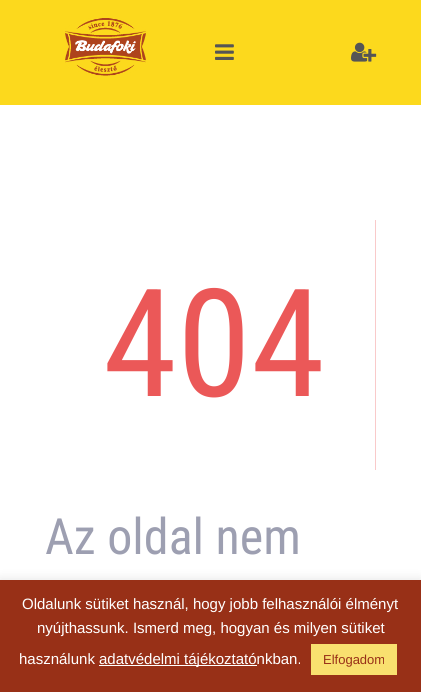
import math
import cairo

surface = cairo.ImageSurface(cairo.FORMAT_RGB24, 421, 692)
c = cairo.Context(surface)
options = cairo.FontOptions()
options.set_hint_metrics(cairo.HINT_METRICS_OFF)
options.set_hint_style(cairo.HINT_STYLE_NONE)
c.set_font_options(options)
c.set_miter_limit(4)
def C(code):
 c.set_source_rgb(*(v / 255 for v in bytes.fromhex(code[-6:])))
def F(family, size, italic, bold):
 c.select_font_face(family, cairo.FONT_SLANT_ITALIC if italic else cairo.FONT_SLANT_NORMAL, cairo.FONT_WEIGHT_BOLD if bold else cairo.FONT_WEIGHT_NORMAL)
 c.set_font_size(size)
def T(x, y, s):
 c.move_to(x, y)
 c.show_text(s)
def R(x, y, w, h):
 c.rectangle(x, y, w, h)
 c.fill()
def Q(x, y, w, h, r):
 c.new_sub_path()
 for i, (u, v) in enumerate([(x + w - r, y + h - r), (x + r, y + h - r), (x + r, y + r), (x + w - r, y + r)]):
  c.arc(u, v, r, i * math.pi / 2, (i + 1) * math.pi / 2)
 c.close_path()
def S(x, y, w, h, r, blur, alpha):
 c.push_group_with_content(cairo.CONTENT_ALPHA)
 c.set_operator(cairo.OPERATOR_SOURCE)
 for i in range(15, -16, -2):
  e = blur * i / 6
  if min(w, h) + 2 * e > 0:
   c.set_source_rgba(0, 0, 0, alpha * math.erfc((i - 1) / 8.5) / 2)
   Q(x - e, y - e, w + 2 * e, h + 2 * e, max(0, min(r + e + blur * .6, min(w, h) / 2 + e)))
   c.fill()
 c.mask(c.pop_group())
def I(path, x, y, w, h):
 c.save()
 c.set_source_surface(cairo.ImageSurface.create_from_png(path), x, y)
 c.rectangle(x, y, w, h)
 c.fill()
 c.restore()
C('ffffff')
c.paint()
C('fcd91d')
R(0,0,421,105)
I('1.png',65,18,81,58)
I('2.png',215,44,19,16)
I('3.png',351,42,26,20)
C('f9caca')
R(375,220,1,250)
F('Roboto Condensed',150,0,0)
C('eb5858')
T(103,396,'404')
F('Roboto Condensed',50,0,0)
C('9d9fb1')
T(45,554,'Az oldal nem')
C('acabab')
S(0,579,421,112,0,5,.3)
C('983017')
R(0,580,421,112)
F('Arimo',15,0,0)
C('ffffff')
T(22,609,'Oldalunk sütiket használ, hogy jobb felhasználói élményt')
T(37,633,'nyújthassunk. Ismerd meg, hogyan és milyen sütiket')
T(19,664,'használunk')
R(99,665,158,1)
T(99,664,'adatvédelmi tájékoztatónkban.')
C('f9e06f')
R(311,644,86,31)
F('Arimo',13,0,0)
C('983017')
T(323,664,'Elfogadom')
surface.write_to_png('o.png')
